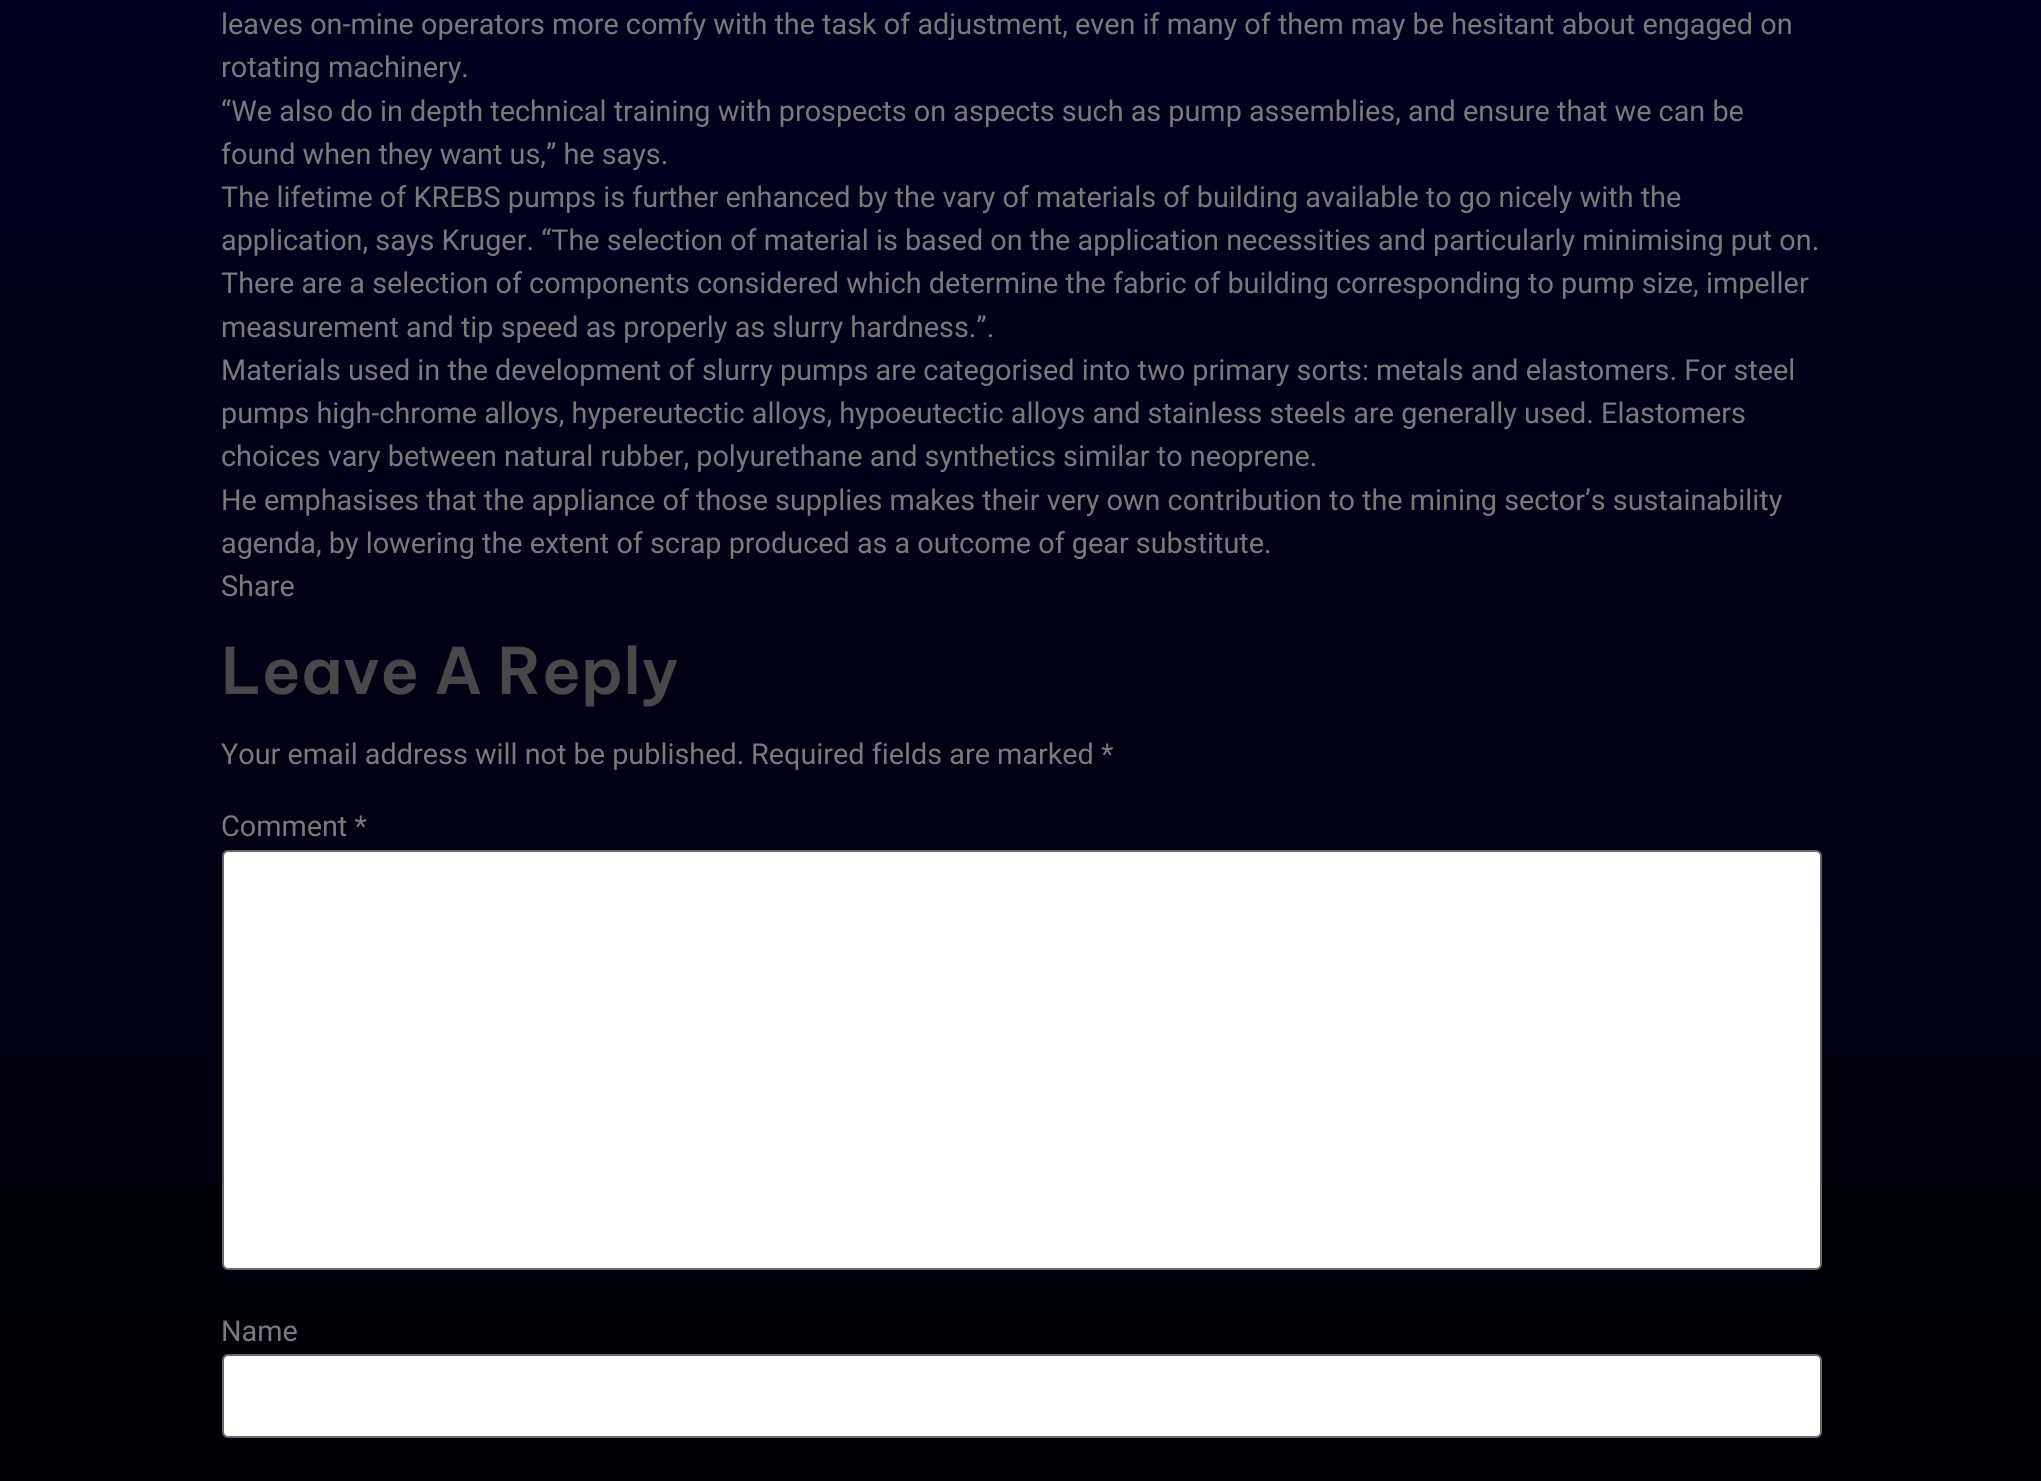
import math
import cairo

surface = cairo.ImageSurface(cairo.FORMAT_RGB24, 2041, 1481)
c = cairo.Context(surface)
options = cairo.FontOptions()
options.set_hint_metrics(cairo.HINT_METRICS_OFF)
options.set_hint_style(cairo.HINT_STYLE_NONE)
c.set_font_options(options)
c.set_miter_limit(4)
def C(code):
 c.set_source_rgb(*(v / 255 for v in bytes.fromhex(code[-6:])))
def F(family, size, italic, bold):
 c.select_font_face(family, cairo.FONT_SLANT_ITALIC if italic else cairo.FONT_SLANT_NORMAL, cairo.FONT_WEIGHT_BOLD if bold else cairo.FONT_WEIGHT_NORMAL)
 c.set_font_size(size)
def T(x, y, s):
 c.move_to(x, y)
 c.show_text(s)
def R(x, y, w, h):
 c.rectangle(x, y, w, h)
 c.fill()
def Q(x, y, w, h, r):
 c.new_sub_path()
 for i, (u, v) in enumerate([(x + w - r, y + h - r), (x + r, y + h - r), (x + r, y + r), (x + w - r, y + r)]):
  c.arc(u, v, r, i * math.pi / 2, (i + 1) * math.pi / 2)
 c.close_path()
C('ffffff')
c.paint()
gradient = cairo.LinearGradient(1021,-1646,1021,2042)
gradient.add_color_stop_rgba(0,0.008,0,0.227,1)
gradient.add_color_stop_rgba(1,0,0,0,1)
c.set_source(gradient)
R(0,0,2041,1481)
F('Roboto',28.8,0,0)
C('7a7a7a')
T(221,34,'leaves on-mine operators more comfy with the task of adjustment, even if many of them may be hesitant about engaged on')
T(221,77,'rotating machinery.')
T(221,121,'“We also do in depth technical training with prospects on aspects such as pump assemblies, and ensure that we can be')
T(221,164,'found when they want us,” he says.')
T(221,207,'The lifetime of KREBS pumps is further enhanced by the vary of materials of building available to go nicely with the')
T(221,250,'application, says Kruger. “The selection of material is based on the application necessities and particularly minimising put on.')
T(221,293,'There are a selection of components considered which determine the fabric of building corresponding to pump size, impeller')
T(221,337,'measurement and tip speed as properly as slurry hardness.”.')
T(221,380,'Materials used in the development of slurry pumps are categorised into two primary sorts: metals and elastomers. For steel')
T(221,423,'pumps high-chrome alloys, hypereutectic alloys, hypoeutectic alloys and stainless steels are generally used. Elastomers')
T(221,466,'choices vary between natural rubber, polyurethane and synthetics similar to neoprene.')
T(221,510,'He emphasises that the appliance of those supplies makes their very own contribution to the mining sector’s sustainability')
T(221,553,'agenda, by lowering the extent of scrap produced as a outcome of gear substitute.')
T(221,596,'Share')
F('Be Vietnam Pro SemiBold',64,0,0)
C('484848')
T(221,694,'Leave A Reply')
F('Roboto',28.8,0,0)
C('7a7a7a')
T(221,764,'Your email address will not be published.')
T(751,764,'Required fields are marked *')
T(221,836,'Comment *')
C('ffffff')
Q(223,851,1598,418,5)
c.fill_preserve()
C('666666')
c.stroke()
C('7a7a7a')
T(221,1341,'Name')
C('ffffff')
Q(223,1355,1598,82,5)
c.fill_preserve()
C('666666')
c.stroke()
surface.write_to_png('o.png')
